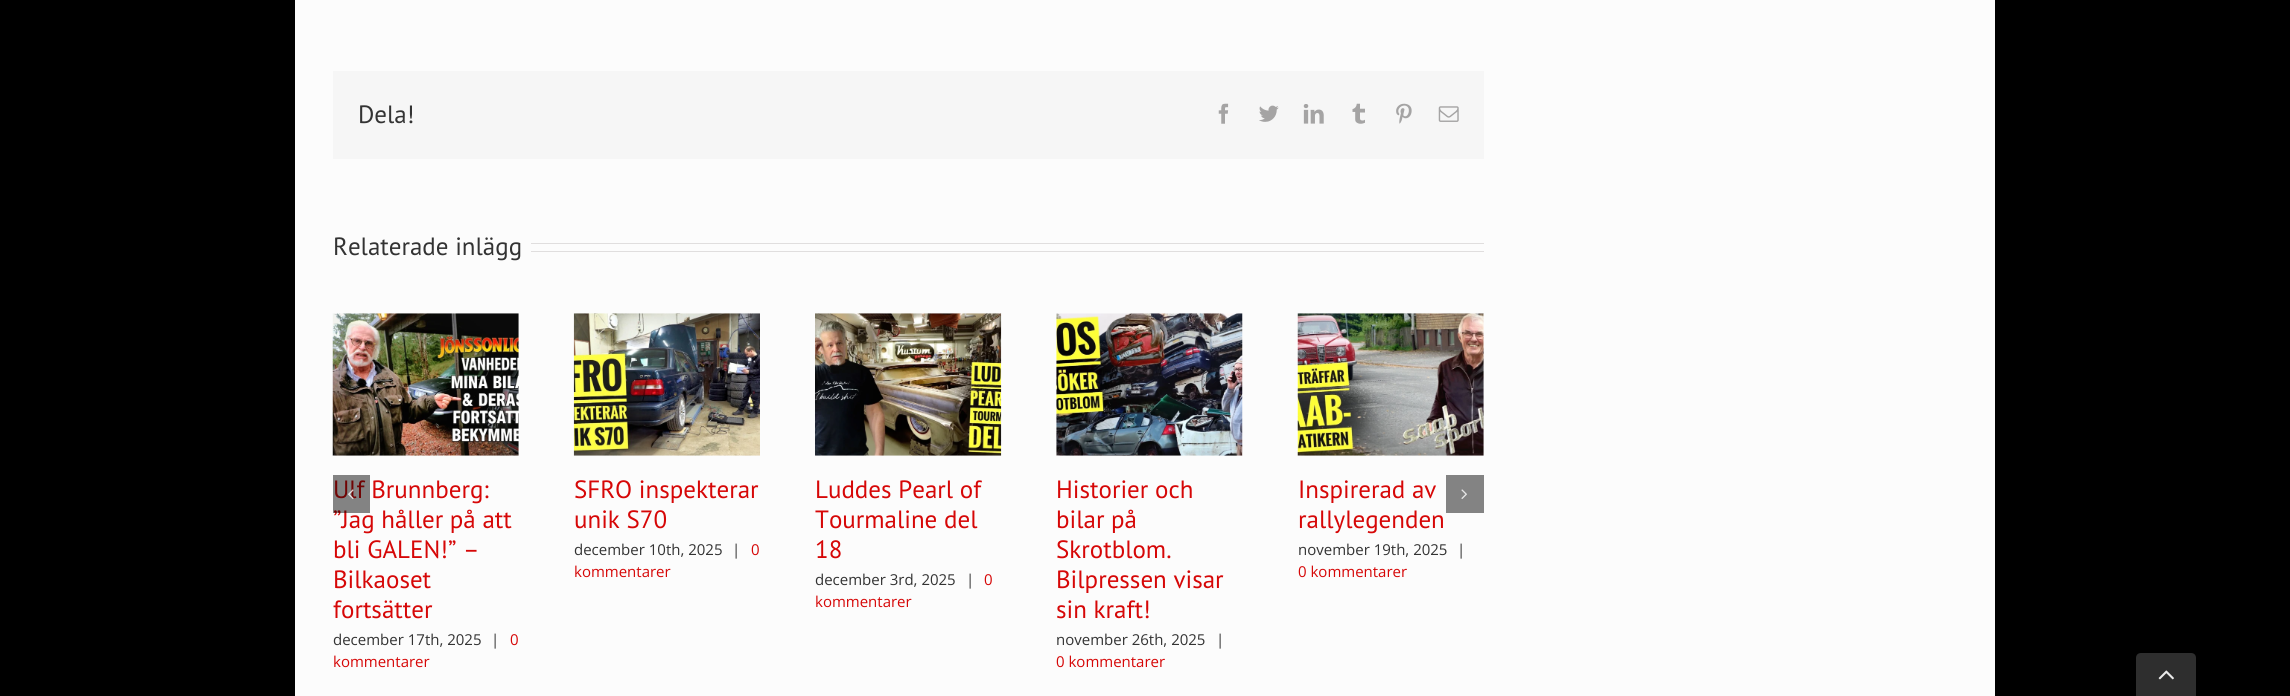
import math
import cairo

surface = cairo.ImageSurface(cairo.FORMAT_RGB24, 2290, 696)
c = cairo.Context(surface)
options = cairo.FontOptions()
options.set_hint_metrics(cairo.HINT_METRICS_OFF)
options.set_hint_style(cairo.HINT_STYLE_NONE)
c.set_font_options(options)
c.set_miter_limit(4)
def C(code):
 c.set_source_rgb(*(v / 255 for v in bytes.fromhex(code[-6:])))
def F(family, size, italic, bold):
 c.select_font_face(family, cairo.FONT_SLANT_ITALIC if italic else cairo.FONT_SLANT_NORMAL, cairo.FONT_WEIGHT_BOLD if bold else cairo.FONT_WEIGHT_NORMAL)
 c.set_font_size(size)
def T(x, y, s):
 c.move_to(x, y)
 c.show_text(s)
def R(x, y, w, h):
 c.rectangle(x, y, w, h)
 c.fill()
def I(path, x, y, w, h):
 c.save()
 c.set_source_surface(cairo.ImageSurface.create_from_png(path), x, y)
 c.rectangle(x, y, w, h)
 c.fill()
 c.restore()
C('000000')
c.paint()
C('fcfcfc')
R(295,0,1700,696)
C('f6f6f6')
R(333,71,1151,88)
F('PT Sans',25,0,0)
C('333333')
T(358,123,'Dela!')
I('1.png',1218,103,11,21)
I('2.png',1259,105,20,17)
I('3.png',1303,104,21,20)
I('4.png',1352,103,13,21)
I('5.png',1396,103,16,21)
I('6.png',1438,106,21,16)
T(333,255,'Relaterade inlägg')
C('e0dede')
R(531,243,953,1)
R(531,251,953,1)
C('d60707')
T(333,498,'Ulf Brunnberg:')
T(333,528,'”Jag håller på att')
c.set_source_rgba(0,0,0,0.48)
R(333,475,37,38)
I('7.png',348,489,6,10)
C('838383')
R(1446,475,38,38)
I('8.png',1461,489,6,10)
I('9.png',332,313,187,143)
C('d60707')
T(333,558,'bli GALEN!” –')
T(333,588,'Bilkaoset')
T(333,618,'fortsätter')
F('Open Sans',15,0,0)
C('333333')
T(333,645,'december 17th, 2025')
T(491,645,'|')
C('d60707')
T(510,645,'0')
T(333,667,'kommentarer')
I('10.png',573,313,187,143)
F('PT Sans',25,0,0)
T(574,498,'SFRO inspekterar')
T(574,528,'unik S70')
F('Open Sans',15,0,0)
C('333333')
T(574,555,'december 10th, 2025')
T(732,555,'|')
C('d60707')
T(751,555,'0')
T(574,577,'kommentarer')
I('11.png',815,313,187,143)
F('PT Sans',25,0,0)
T(815,498,'Luddes Pearl of')
T(815,528,'Tourmaline del')
T(815,558,'18')
F('Open Sans',15,0,0)
C('333333')
T(815,585,'december 3rd, 2025')
T(966,585,'|')
C('d60707')
T(984,585,'0')
T(815,607,'kommentarer')
I('12.png',1056,313,187,143)
F('PT Sans',25,0,0)
T(1056,498,'Historier och')
T(1056,528,'bilar på')
T(1056,558,'Skrotblom.')
T(1056,588,'Bilpressen visar')
T(1056,618,'sin kraft!')
F('Open Sans',15,0,0)
C('333333')
T(1056,645,'november 26th, 2025')
T(1216,645,'|')
C('d60707')
T(1056,667,'0 kommentarer')
I('13.png',1297,313,187,143)
F('PT Sans',25,0,0)
T(1298,498,'Inspirerad av')
T(1298,528,'rallylegenden')
F('Open Sans',15,0,0)
C('333333')
T(1298,555,'november 19th, 2025')
T(1457,555,'|')
C('d60707')
T(1298,577,'0 kommentarer')
C('2e2e2e')
c.new_path()
c.move_to(2141,653)
c.line_to(2191,653)
c.curve_to(2194,653,2196,655,2196,658)
c.line_to(2196,696)
c.line_to(2136,696)
c.line_to(2136,658)
c.curve_to(2136,655,2138,653,2141,653)
c.close_path()
c.fill()
I('14.png',2158,670,16,10)
surface.write_to_png('o.png')
